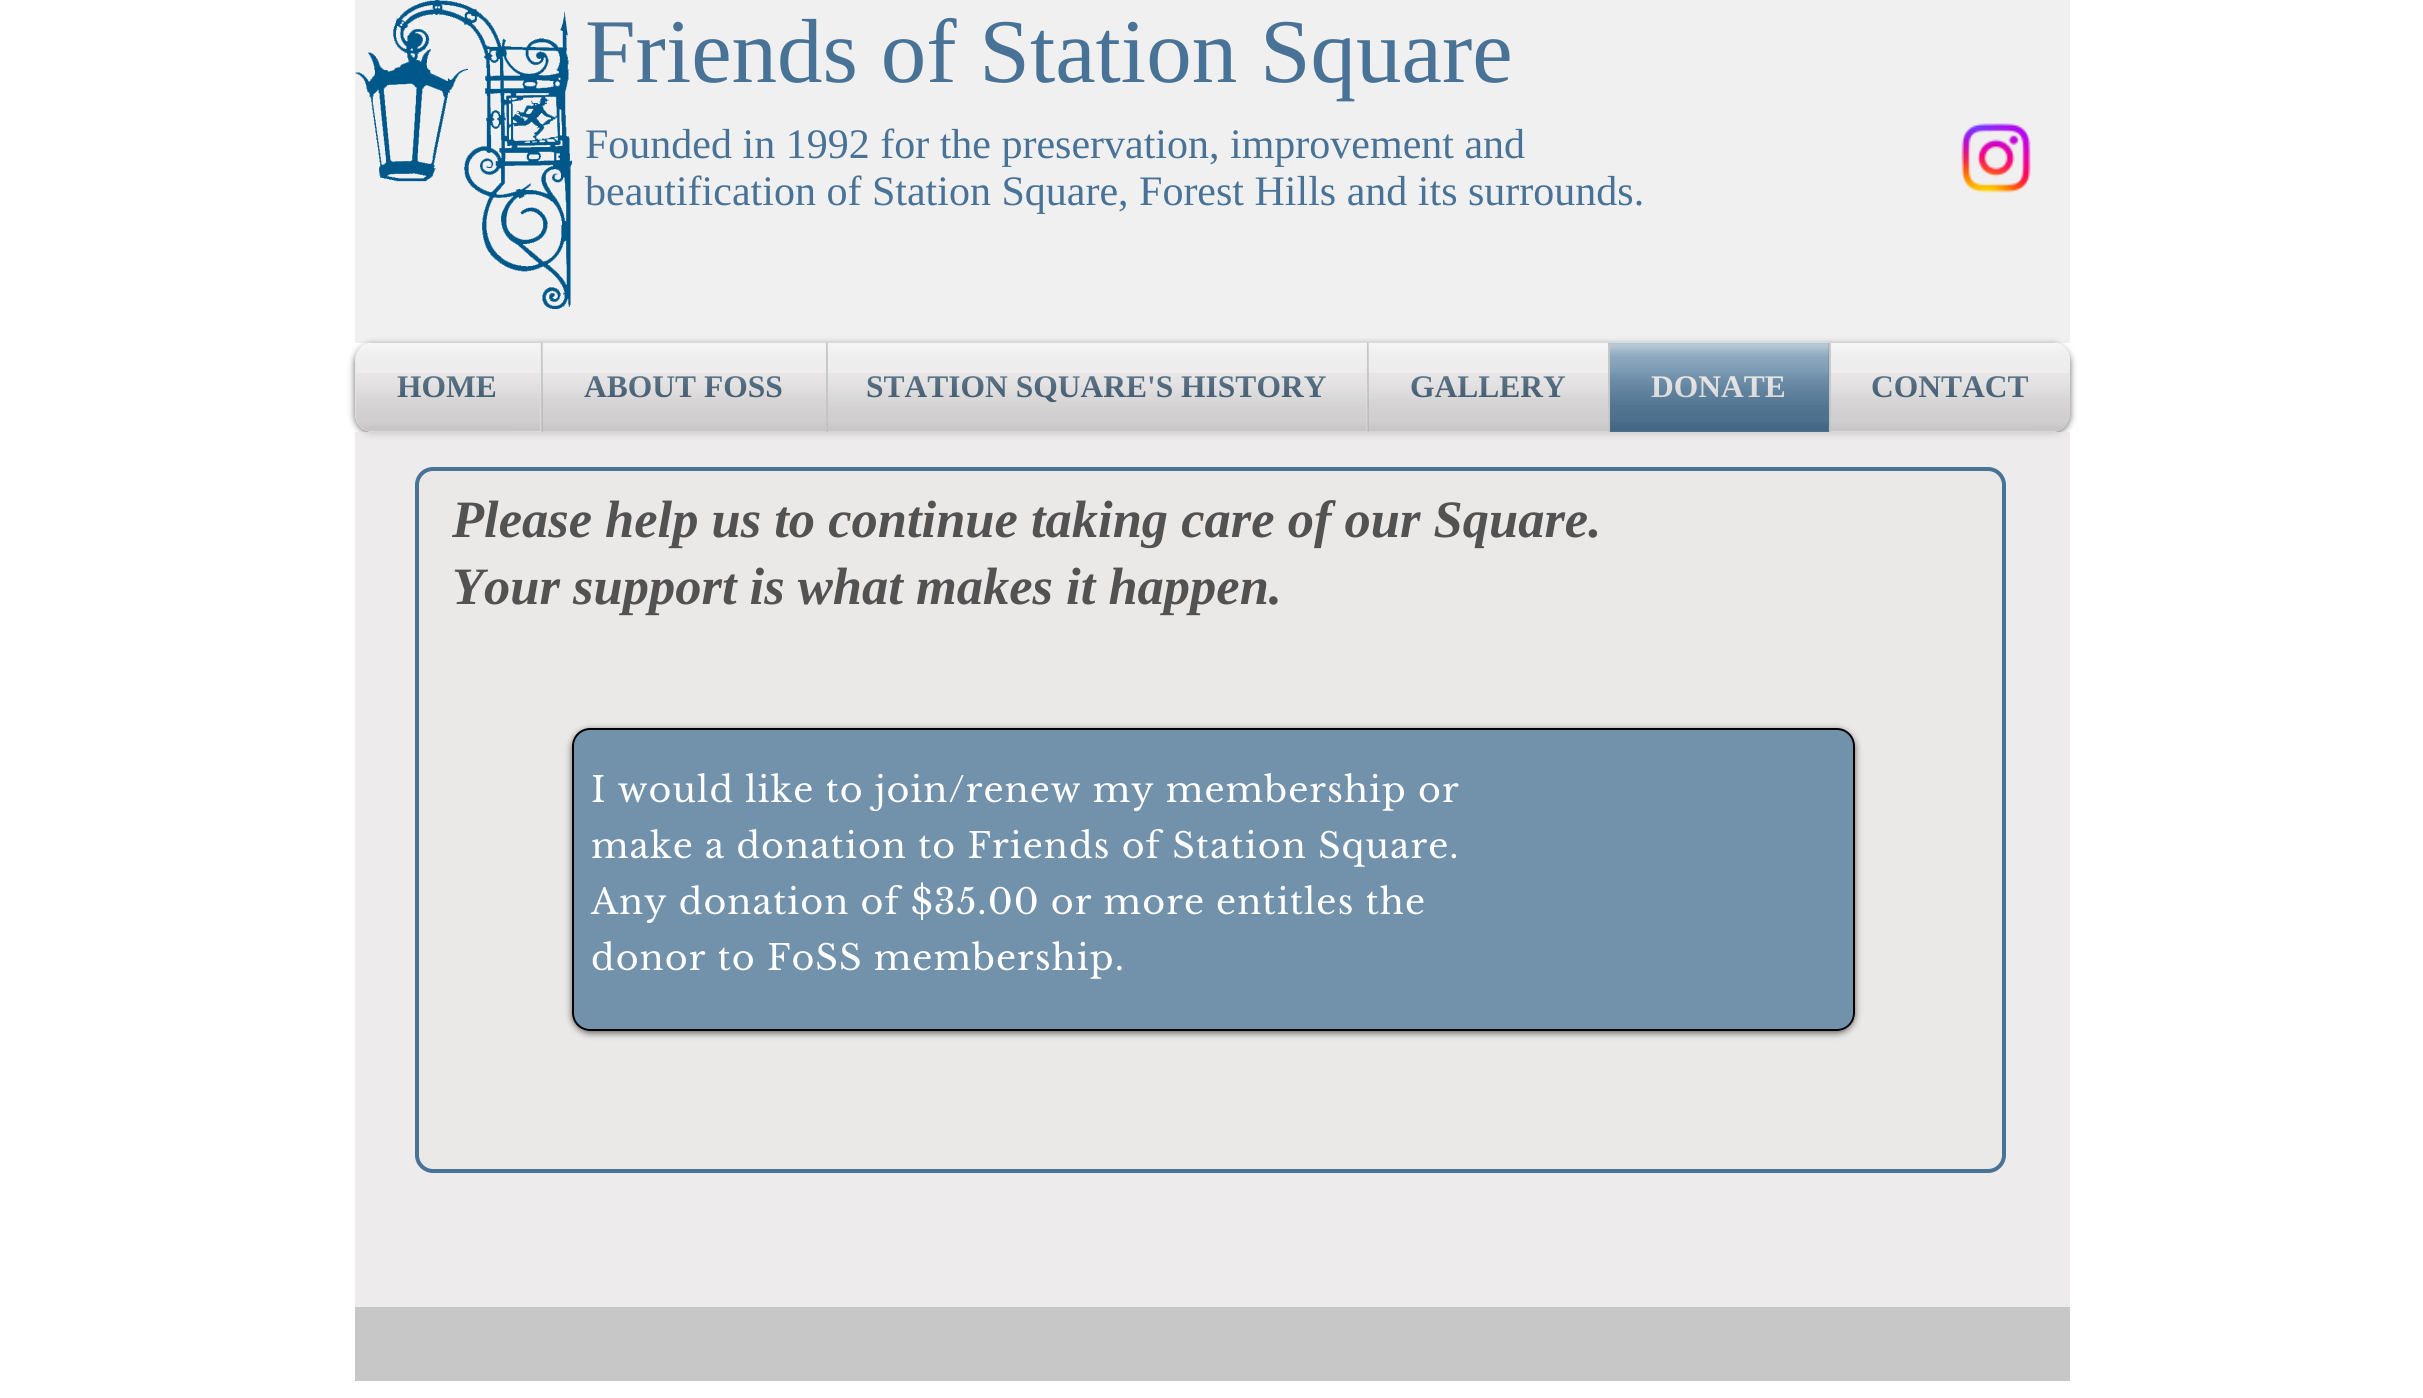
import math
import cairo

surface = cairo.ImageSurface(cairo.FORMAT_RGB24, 2423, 1398)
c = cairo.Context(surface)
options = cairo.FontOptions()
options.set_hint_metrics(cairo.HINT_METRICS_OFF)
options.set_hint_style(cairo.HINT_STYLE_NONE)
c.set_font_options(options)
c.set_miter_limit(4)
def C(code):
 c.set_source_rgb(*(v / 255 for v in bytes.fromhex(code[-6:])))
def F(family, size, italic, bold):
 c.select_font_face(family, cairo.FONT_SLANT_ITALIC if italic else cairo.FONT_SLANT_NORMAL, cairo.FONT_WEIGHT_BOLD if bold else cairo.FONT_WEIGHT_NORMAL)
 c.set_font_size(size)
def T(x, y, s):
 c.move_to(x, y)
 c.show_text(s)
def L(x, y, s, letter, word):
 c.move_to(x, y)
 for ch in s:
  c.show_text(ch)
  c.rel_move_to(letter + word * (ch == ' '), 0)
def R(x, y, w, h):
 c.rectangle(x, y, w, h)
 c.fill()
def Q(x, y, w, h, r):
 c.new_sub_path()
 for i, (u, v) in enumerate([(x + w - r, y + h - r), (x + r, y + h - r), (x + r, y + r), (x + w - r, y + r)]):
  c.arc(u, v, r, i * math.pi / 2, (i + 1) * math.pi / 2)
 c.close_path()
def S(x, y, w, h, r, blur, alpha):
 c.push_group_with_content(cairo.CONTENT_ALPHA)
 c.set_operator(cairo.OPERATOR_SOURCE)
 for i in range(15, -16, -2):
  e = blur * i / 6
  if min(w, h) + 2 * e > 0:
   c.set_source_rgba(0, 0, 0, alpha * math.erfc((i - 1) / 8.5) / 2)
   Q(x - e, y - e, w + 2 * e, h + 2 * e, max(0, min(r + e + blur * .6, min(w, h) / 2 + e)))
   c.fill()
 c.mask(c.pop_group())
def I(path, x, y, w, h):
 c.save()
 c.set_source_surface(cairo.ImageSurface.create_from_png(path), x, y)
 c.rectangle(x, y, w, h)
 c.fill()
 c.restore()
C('ffffff')
c.paint()
C('f1f0f0')
R(355,0,1715,343)
I('1.png',1961,123,70,70)
I('2.png',355,0,218,310)
F('Liberation Serif',91,0,0)
C('487396')
T(585,82,'Friends of Station Square')
F('Liberation Serif',42,0,0)
T(585,158,'Founded in 1992 for the preservation, improvement and')
T(585,205,'beautification of Station Square, Forest Hills and its surrounds.')
C('000000')
S(355,345,1715,89,18,3.5,.6)
C('e8e6e6')
Q(355,343,1715,89,18)
c.fill()
I('3.png',355,342,1715,43)
I('4.png',355,373,1715,59)
c.new_path()
c.move_to(373,343)
c.line_to(541,343)
c.line_to(541,432)
c.line_to(373,432)
c.curve_to(363,432,355,424,355,414)
c.line_to(355,361)
c.curve_to(355,351,363,343,373,343)
c.close_path()
c.fill()
F('Liberation Serif',31.5,0,1)
C('37556e')
T(397,397,'HOME')
I('5.png',356,343,185,55)
I('6.png',355,373,186,59)
C('e8e6e6')
R(543,343,283,89)
C('c7c7c7')
R(541,343,2,89)
C('37556e')
T(584,397,'ABOUT FOSS')
I('7.png',542,342,284,56)
I('8.png',542,373,284,59)
C('e8e6e6')
R(828,343,539,89)
C('c7c7c7')
R(826,343,2,89)
C('37556e')
T(866,397,'STATION SQUARE\'S HISTORY')
I('9.png',827,342,540,60)
I('10.png',827,373,540,59)
C('e8e6e6')
R(1369,343,239,89)
C('c7c7c7')
R(1367,343,2,89)
C('37556e')
T(1410,397,'GALLERY')
I('11.png',1368,342,240,56)
I('12.png',1368,373,240,59)
c.set_source_rgba(0.282,0.451,0.588,0.94)
R(1610,343,219,89)
C('c7c7c7')
R(1608,343,2,89)
C('e8e6e6')
T(1651,397,'DONATE')
I('13.png',1610,342,219,80)
I('14.png',1610,373,219,59)
c.new_path()
c.move_to(1829,343)
c.line_to(2052,343)
c.curve_to(2062,343,2070,351,2070,361)
c.line_to(2070,414)
c.curve_to(2070,424,2062,432,2052,432)
c.line_to(1829,432)
c.close_path()
c.fill()
C('c7c7c7')
R(1829,343,2,89)
C('37556e')
T(1871,397,'CONTACT')
I('15.png',1830,343,240,55)
I('16.png',1830,373,240,59)
c.set_source_rgba(0.91,0.902,0.902,0.77)
R(355,432,1715,875)
C('ebe8e8')
Q(417,469,1587,702,16)
c.fill_preserve()
C('487396')
c.set_line_width(4)
c.stroke()
F('Liberation Serif',52.5,1,1)
C('525252')
T(452,537,'Please help us to continue taking care of our Square.')
T(452,604,'Your support is what makes it happen.')
c.save()
c.set_fill_rule(cairo.FILL_RULE_EVEN_ODD)
c.new_path()
c.move_to(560,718)
c.line_to(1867,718)
c.line_to(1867,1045)
c.line_to(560,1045)
c.close_path()
c.move_to(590,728)
c.line_to(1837,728)
c.curve_to(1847,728,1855,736,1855,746)
c.line_to(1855,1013)
c.curve_to(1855,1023,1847,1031,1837,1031)
c.line_to(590,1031)
c.curve_to(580,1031,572,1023,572,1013)
c.line_to(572,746)
c.curve_to(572,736,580,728,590,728)
c.close_path()
c.clip()
C('000000')
S(572,730,1283,303,18,3.5,.6)
c.restore()
c.set_source_rgba(0.282,0.451,0.588,0.74)
Q(573,729,1281,301,17)
c.fill_preserve()
C('000000')
c.set_line_width(2)
c.stroke()
F('Libre Baskerville',35,0,0)
C('ffffff')
L(591,802,'I would like to join/renew my membership or',1.05,0)
L(591,858,'make a donation to Friends of Station Square.',1.05,0)
L(591,914,'Any donation of $35.00 or more entitles the',1.05,0)
L(591,970,'donor to FoSS membership.',1.05,0)
C('c7c7c7')
R(355,1307,1715,74)
surface.write_to_png('o.png')
